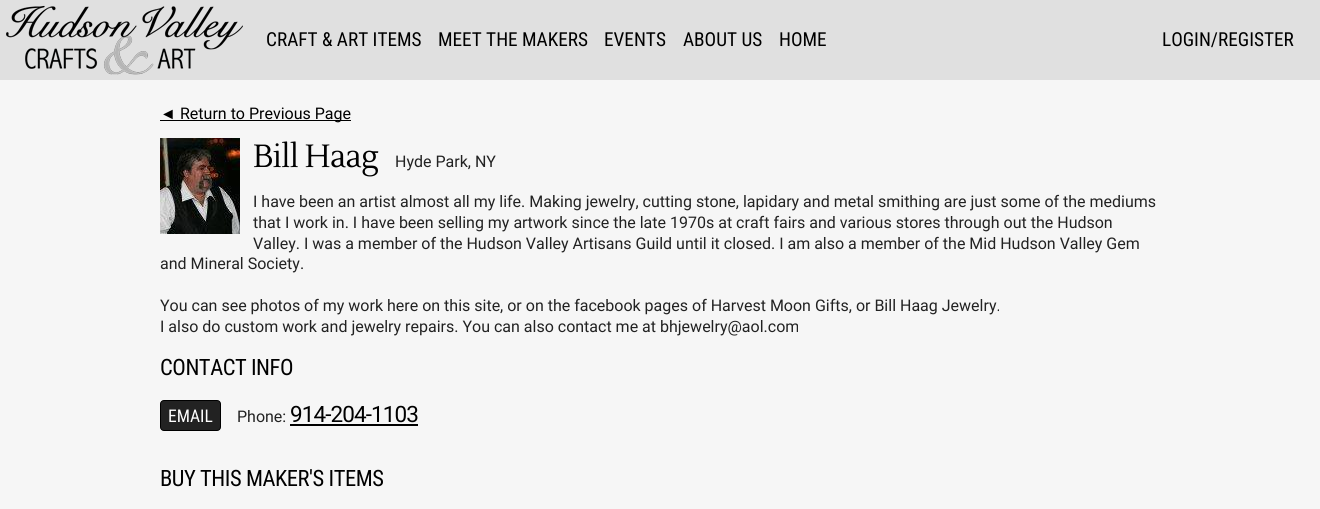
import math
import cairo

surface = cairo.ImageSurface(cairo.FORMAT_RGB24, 1320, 509)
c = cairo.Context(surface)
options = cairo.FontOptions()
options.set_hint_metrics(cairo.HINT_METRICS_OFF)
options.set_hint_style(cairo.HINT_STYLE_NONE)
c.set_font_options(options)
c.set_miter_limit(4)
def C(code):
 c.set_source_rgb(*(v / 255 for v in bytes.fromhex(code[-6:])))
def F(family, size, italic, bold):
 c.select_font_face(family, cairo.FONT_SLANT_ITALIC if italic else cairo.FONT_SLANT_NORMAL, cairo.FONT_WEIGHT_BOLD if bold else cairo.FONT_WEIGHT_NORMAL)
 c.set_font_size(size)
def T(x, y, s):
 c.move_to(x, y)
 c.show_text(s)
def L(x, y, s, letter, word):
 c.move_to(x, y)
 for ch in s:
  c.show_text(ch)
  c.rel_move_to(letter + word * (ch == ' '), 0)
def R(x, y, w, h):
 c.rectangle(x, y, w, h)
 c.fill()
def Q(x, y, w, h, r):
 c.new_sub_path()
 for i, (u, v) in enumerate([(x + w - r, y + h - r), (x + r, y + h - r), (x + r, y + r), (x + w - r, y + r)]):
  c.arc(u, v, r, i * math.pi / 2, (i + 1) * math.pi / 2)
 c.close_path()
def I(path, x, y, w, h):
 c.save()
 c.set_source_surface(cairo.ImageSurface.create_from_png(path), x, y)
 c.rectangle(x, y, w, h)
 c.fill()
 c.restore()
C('f6f6f6')
c.paint()
C('e0e0e0')
R(0,0,1320,80)
I('1.png',6,5,237,70)
F('Roboto Condensed',19.25,0,0)
C('000000')
T(266,46,'CRAFT & ART ITEMS')
T(438,46,'MEET THE MAKERS')
T(604,46,'EVENTS')
T(683,46,'ABOUT US')
T(779,46,'HOME')
T(1162,46,'LOGIN/REGISTER')
F('Liberation Sans',16,0,0)
T(160,119,'◄')
R(160,120,191,1)
F('Roboto',16,0,0)
T(180,119,'Return to Previous Page')
I('2.png',160,138,80,96)
F('Lustria',32,0,0)
L(253,167,'Bill Haag',-.75,0)
F('Roboto',16,0,0)
C('222222')
T(395,167,'Hyde Park, NY')
T(253,207,'I have been an artist almost all my life. Making jewelry, cutting stone, lapidary and metal smithing are just some of the mediums')
T(253,228,'that I work in. I have been selling my artwork since the late 1970s at craft fairs and various stores through out the Hudson')
T(253,249,'Valley. I was a member of the Hudson Valley Artisans Guild until it closed. I am also a member of the Mid Hudson Valley Gem')
T(160,269,'and Mineral Society.')
T(160,311,'You can see photos of my work here on this site, or on the facebook pages of Harvest Moon Gifts, or Bill Haag Jewelry.')
T(160,332,'I also do custom work and jewelry repairs. You can also contact me at bhjewelry@aol.com')
F('Roboto Condensed',22.5,0,0)
C('000000')
L(160,375,'CONTACT INFO',-.45,0)
C('222222')
Q(160.5,400.5,60,30,3.5)
c.fill_preserve()
C('000000')
c.set_line_width(1)
c.stroke()
F('Roboto Condensed',17.5,0,0)
C('ffffff')
T(168,422,'EMAIL')
F('Roboto',16,0,0)
C('222222')
T(237,422,'Phone:')
F('Roboto',22.5,0,0)
C('000000')
L(290,422,'914-204-1103',-.9,0)
R(290,424,128,2)
F('Roboto Condensed',22.5,0,0)
L(160,486,'BUY THIS MAKER\'S ITEMS',-.45,0)
surface.write_to_png('o.png')
